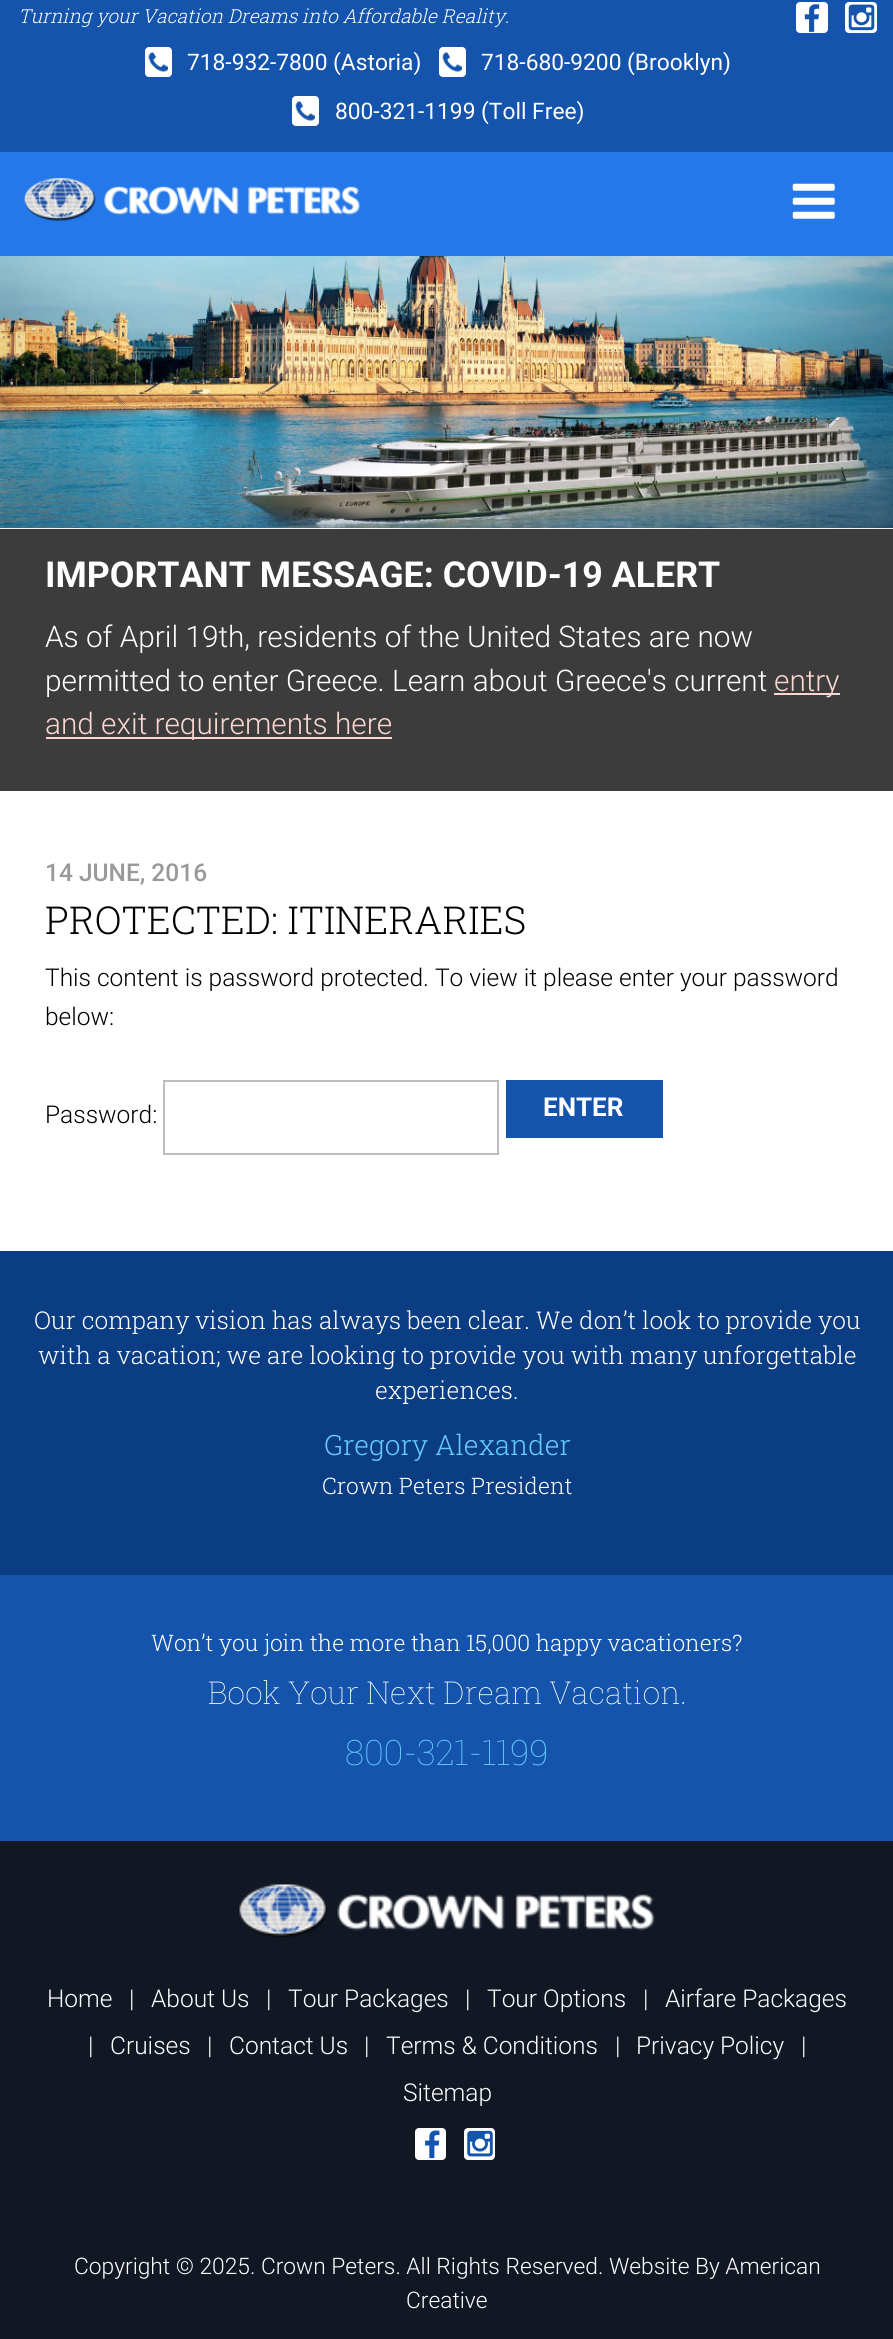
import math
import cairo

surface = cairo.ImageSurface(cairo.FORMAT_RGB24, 893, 2339)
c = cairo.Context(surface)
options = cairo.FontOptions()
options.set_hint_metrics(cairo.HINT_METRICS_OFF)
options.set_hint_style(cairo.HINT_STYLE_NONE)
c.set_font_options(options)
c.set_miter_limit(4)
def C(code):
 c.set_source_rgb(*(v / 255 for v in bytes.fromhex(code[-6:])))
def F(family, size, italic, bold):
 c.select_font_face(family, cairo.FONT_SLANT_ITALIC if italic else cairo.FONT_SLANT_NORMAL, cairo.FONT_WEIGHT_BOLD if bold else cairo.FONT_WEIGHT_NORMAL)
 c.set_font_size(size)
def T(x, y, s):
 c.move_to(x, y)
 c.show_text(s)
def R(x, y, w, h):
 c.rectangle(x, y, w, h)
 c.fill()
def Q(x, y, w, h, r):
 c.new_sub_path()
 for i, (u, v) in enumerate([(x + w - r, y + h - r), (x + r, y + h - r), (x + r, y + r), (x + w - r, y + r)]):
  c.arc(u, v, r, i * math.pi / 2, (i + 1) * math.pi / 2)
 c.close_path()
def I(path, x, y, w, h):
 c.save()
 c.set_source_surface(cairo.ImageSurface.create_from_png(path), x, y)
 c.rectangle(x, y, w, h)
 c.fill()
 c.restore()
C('ffffff')
c.paint()
C('1454ac')
R(0,0,893,152)
F('Roboto Slab Light',19.25,1,0)
C('ffffff')
T(18,23,'Turning your Vacation Dreams into Affordable Reality.')
Q(796,2,32,31,4)
c.fill()
I('1.png',804,4,16,28)
Q(845,2,32,31,4)
c.fill()
I('2.png',848,4,27,27)
Q(145,47,27,30,4)
c.fill()
I('3.png',148,52,20,20)
F('Roboto',22.75,0,0)
T(187,70,'718-932-7800 (Astoria)')
Q(439,47,27,30,4)
c.fill()
I('3.png',442,52,20,20)
T(481,70,'718-680-9200 (Brooklyn)')
Q(292,96,27,30,4)
c.fill()
I('3.png',295,101,20,20)
T(335,119,'800-321-1199 (Toll Free)')
C('2578e9')
R(0,152,893,104)
I('4.png',23,178,338,44)
I('5.png',792,183,43,36)
I('6.png',0,256,893,273)
C('3c3c3c')
R(0,529,893,262)
F('Roboto',35.75,0,1)
C('ffffff')
T(45,587,'IMPORTANT MESSAGE: COVID-19 ALERT')
F('Roboto Light',29.75,0,0)
T(45,647,'As of April 19th, residents of the United States are now')
T(45,691,'permitted to enter Greece. Learn about Greece\'s current')
C('fbd7d0')
R(774,693,66,2)
T(774,691,'entry')
R(46,737,346,2)
T(45,734,'and exit requirements here')
F('Roboto Medium',24.5,0,0)
C('999999')
T(45,881,'14 JUNE, 2016')
F('Roboto Slab Light',38.5,0,0)
C('000000')
T(45,934,'PROTECTED: ITINERARIES')
F('Roboto Light',24.5,0,0)
T(45,986,'This content is password protected. To view it please enter your password')
T(45,1025,'below:')
T(45,1123,'Password:')
c.rectangle(164,1081,334,73)
C('bdbdbd')
c.stroke()
C('1454ac')
c.rectangle(508,1082,153,54)
c.fill_preserve()
c.set_line_width(4)
c.stroke()
F('Roboto',26,0,1)
C('ffffff')
T(543,1116,'ENTER')
C('0a3d84')
R(0,1251,893,324)
F('Roboto Slab Light',24.5,0,0)
C('ffffff')
T(34,1329,'Our company vision has always been clear. We don’t look to provide you')
T(38,1364,'with a vacation; we are looking to provide you with many unforgettable')
T(375,1399,'experiences.')
F('Roboto Slab Light',28,0,0)
C('66ccff')
T(324,1455,'Gregory Alexander')
F('Roboto Slab Light',22.75,0,0)
C('ffffff')
T(322,1494,'Crown Peters President')
C('1454ac')
R(0,1575,893,266)
C('ffffff')
T(151,1651,'Won’t you join the more than 15,000 happy vacationers?')
F('Roboto Slab Thin',31.5,0,0)
T(208,1704,'Book Your Next Dream Vacation.')
F('Roboto Slab Thin',35,0,0)
C('66ccff')
T(345,1765,'800-321-1199')
C('111824')
R(0,1841,893,498)
I('7.png',239,1884,416,54)
F('Roboto Light',24.5,0,0)
C('ffffff')
T(47,2007,'Home')
T(129,2007,'|')
T(151,2007,'About Us')
T(266,2007,'|')
T(288,2007,'Tour Packages')
T(465,2007,'|')
T(487,2007,'Tour Options')
T(643,2007,'|')
T(665,2007,'Airfare Packages')
T(88,2054,'|')
T(110,2054,'Cruises')
T(207,2054,'|')
T(229,2054,'Contact Us')
T(364,2054,'|')
T(386,2054,'Terms & Conditions')
T(615,2054,'|')
T(636,2054,'Privacy Policy')
T(801,2054,'|')
T(403,2101,'Sitemap')
Q(415,2128,31,32,4)
c.fill()
I('8.png',425,2130,15,29)
Q(464,2128,31,32,4)
c.fill()
I('9.png',467,2130,26,27)
F('Roboto Light',22.75,0,0)
T(74,2274,'Copyright © 2025. Crown Peters. All Rights Reserved. Website By American')
T(406,2308,'Creative')
surface.write_to_png('o.png')
